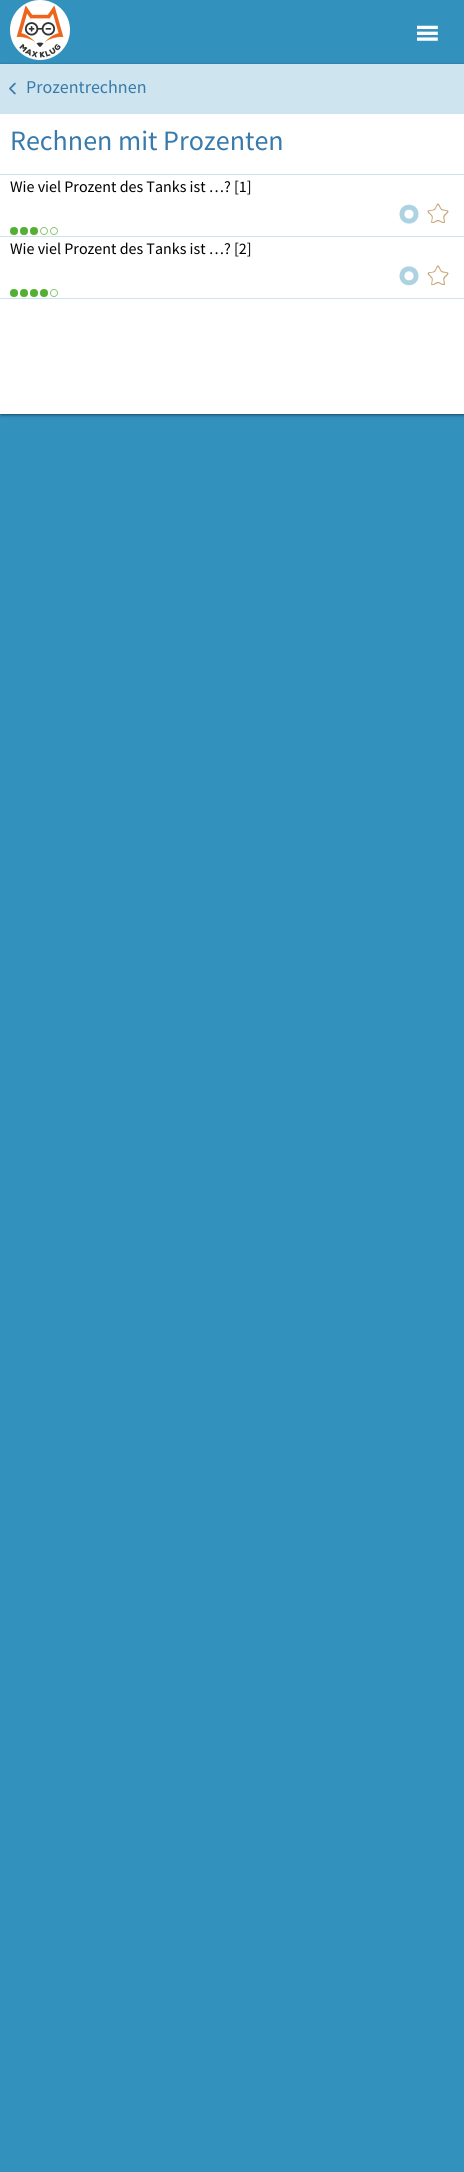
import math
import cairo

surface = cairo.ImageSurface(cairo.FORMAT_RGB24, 464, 2172)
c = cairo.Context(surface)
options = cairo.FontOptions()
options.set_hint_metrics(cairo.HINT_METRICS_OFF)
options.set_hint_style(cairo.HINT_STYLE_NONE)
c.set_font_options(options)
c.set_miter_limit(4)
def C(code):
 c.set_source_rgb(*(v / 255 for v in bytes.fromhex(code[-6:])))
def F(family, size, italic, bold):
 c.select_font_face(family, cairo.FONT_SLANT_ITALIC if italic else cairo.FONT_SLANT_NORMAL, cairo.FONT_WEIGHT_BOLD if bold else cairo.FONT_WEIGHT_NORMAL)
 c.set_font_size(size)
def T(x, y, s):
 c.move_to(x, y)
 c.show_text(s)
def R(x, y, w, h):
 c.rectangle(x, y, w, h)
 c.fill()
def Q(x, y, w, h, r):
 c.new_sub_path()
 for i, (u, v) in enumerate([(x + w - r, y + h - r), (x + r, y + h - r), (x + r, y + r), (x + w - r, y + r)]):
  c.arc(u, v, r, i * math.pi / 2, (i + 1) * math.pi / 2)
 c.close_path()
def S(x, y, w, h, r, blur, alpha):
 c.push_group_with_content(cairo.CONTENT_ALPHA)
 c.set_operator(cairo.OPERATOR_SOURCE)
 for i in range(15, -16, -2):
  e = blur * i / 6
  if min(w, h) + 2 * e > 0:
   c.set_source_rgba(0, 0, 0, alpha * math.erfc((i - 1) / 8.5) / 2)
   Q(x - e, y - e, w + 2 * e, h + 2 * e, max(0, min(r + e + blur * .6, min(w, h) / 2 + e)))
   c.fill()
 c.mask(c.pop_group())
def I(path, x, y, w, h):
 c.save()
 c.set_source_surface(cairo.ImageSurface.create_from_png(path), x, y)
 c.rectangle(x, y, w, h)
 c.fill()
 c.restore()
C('3391bd')
c.paint()
C('000000')
S(1,65,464,350,0,1.5,.5)
I('1.png',10,0,60,60)
I('2.png',417,25,21,16)
C('ffffff')
R(0,114,464,300)
C('cee5ef')
R(0,64,464,50)
I('3.png',9,82,7,13)
F('Source Sans Pro',18,0,0)
C('377aab')
T(26,93,'Prozentrechnen')
F('Source Sans Pro',28,0,0)
T(10,150,'Rechnen mit Prozenten')
C('c9e2ee')
R(0,174,464,1)
C('cde4ee')
R(0,236,464,1)
F('Source Sans Pro',16,0,0)
C('000000')
T(10,192,'Wie viel Prozent des Tanks ist …? [1]')
c.new_path()
c.move_to(402,214)
c.curve_to(402,205,416,205,416,214)
c.curve_to(416,223.5,402,223.5,402,214)
c.close_path()
C('add3e3')
c.set_line_width(5)
c.stroke()
I('4.png',427,203,22,20)
I('5.png',10,227,48,8)
C('cde4ee')
R(0,298,464,1)
C('000000')
T(10,254,'Wie viel Prozent des Tanks ist …? [2]')
c.new_path()
c.move_to(402,276)
c.curve_to(402,266.5,416,266.5,416,276)
c.curve_to(416,285,402,285,402,276)
c.close_path()
C('add3e3')
c.stroke()
I('4.png',427,265,22,20)
I('6.png',10,289,48,8)
surface.write_to_png('o.png')
